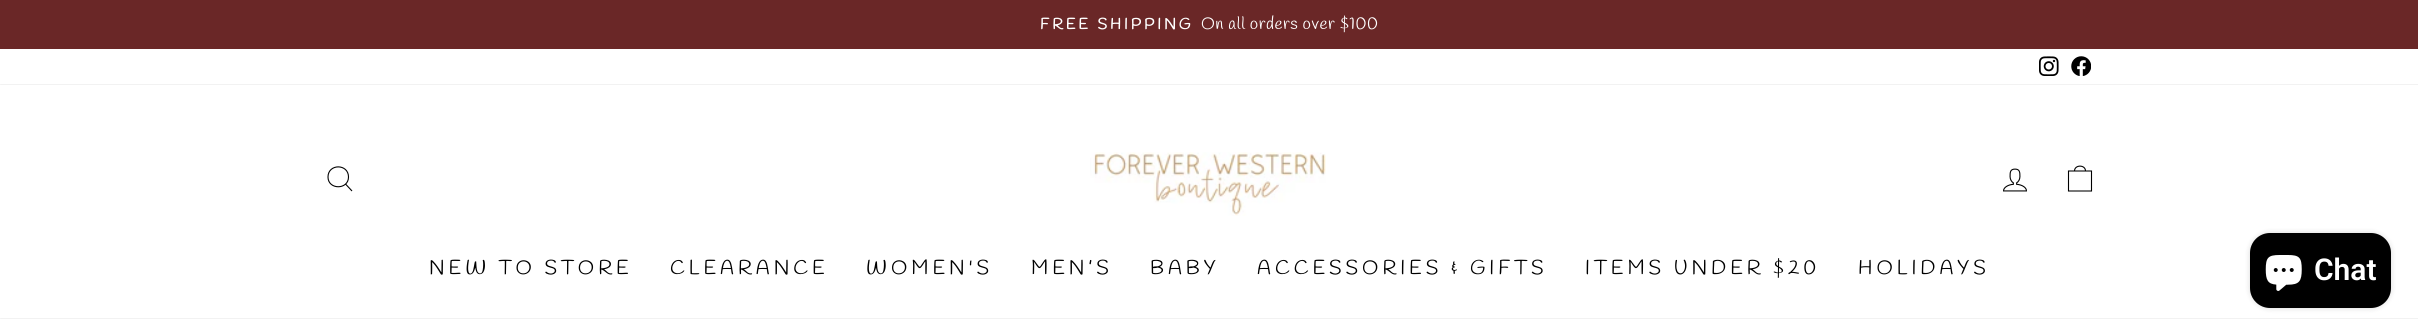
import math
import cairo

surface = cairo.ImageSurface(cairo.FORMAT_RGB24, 2418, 333)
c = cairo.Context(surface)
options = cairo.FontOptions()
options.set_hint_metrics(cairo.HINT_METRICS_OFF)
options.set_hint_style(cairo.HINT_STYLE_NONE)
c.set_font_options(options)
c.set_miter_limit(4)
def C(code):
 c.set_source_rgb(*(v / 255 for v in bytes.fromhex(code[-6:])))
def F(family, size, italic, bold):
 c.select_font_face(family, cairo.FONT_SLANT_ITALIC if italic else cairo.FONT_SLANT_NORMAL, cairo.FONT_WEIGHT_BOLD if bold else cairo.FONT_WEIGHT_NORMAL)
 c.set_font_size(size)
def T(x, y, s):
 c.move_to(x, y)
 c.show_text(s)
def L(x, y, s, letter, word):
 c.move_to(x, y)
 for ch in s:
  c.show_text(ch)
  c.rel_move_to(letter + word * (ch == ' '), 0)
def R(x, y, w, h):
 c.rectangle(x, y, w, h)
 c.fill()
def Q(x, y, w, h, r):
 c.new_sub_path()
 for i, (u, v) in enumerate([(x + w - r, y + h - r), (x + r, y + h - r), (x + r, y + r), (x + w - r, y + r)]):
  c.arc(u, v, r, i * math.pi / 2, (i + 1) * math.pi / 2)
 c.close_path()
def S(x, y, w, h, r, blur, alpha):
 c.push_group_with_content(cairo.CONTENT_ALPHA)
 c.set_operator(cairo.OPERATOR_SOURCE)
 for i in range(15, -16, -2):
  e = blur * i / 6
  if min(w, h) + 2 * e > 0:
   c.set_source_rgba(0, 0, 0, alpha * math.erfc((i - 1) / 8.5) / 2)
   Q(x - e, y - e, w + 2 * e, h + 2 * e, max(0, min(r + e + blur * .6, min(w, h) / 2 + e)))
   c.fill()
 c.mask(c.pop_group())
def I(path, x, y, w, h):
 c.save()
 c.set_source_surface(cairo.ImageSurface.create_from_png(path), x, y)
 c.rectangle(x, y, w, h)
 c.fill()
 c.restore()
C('ffffff')
c.paint()
C('6a2727')
R(0,0,2418,49)
F('Handlee',15.25,0,1)
C('ffffff')
L(1040,29,'FREE SHIPPING',3,0)
F('Handlee',17,0,0)
L(1201,29,'On all orders over $100',.5,0)
I('1.png',2039,56,20,20)
I('2.png',2071,56,20,20)
C('000000')
S(0,85,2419,233,0,.5,.2)
C('ffffff')
R(0,85,2418,233)
c.new_path()
c.move_to(348.5,177)
c.curve_to(348.5,190,328,190,328,177)
c.curve_to(328,163.5,348.5,163.5,348.5,177)
c.close_path()
c.move_to(352,191)
c.line_to(345.5,184)
C('000000')
c.set_line_width(1.1)
c.stroke()
I('3.png',1090,152,236,64)
I('4.png',2003,168,24,24)
c.new_path()
c.move_to(2068.5,171)
c.line_to(2091.5,171)
c.line_to(2091.5,191)
c.line_to(2068.5,191)
c.close_path()
c.move_to(2074.5,171)
c.curve_to(2074.5,164.5,2085.5,164.5,2085.5,171)
c.stroke()
F('Handlee',20,0,0)
L(429,274,'NEW TO STORE',4,0)
L(670,274,'CLEARANCE',4,0)
L(866,274,'WOMEN\'S',4,0)
L(1031,274,'MEN’S',4,0)
L(1150,274,'BABY',4,0)
L(1257,274,'ACCESSORIES & GIFTS',4,0)
L(1585,274,'ITEMS UNDER $20',4,0)
L(1858,274,'HOLIDAYS',4,0)
C('000000')
S(2250,233,141,75,20,3,.15)
C('000000')
Q(2250,233,141,75,20)
c.fill()
I('5.png',2265,255,37,36)
F('Roboto SemiBold',30,0,0)
C('ffffff')
T(2314,280,'Chat')
surface.write_to_png('o.png')
